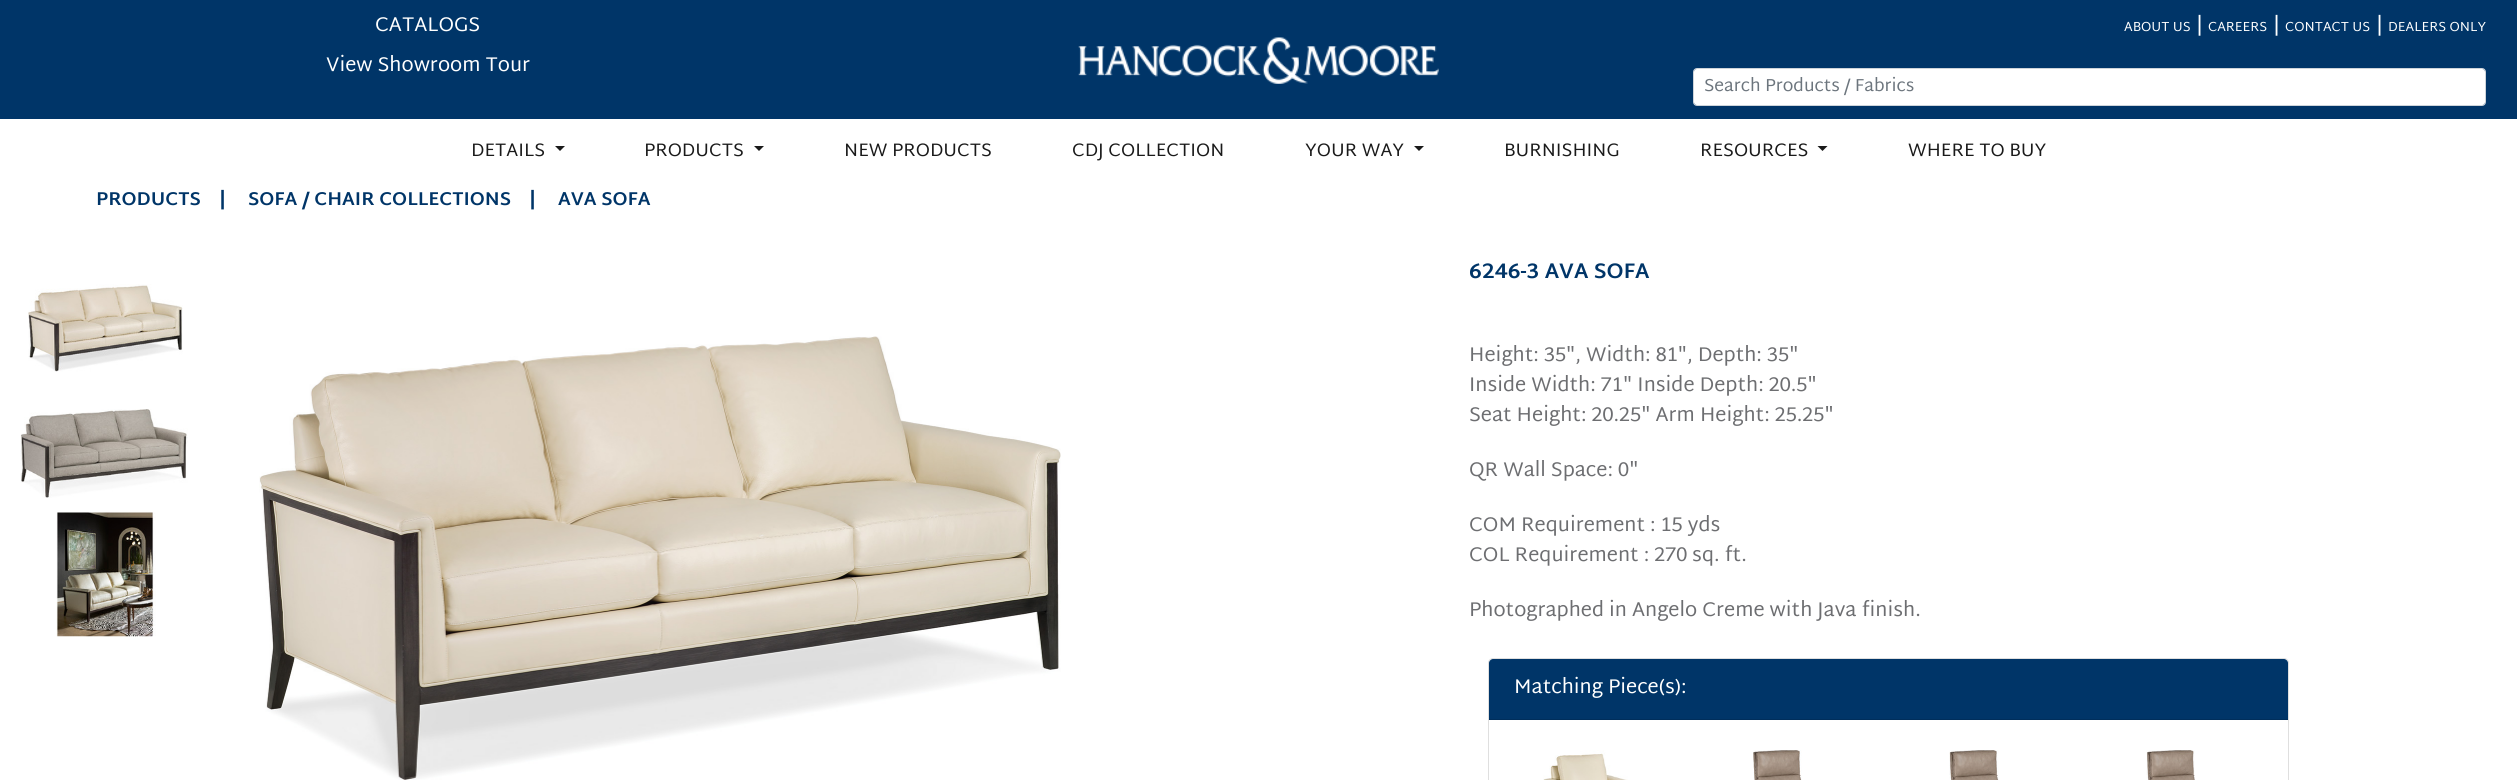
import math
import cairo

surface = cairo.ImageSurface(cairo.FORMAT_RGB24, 2517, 780)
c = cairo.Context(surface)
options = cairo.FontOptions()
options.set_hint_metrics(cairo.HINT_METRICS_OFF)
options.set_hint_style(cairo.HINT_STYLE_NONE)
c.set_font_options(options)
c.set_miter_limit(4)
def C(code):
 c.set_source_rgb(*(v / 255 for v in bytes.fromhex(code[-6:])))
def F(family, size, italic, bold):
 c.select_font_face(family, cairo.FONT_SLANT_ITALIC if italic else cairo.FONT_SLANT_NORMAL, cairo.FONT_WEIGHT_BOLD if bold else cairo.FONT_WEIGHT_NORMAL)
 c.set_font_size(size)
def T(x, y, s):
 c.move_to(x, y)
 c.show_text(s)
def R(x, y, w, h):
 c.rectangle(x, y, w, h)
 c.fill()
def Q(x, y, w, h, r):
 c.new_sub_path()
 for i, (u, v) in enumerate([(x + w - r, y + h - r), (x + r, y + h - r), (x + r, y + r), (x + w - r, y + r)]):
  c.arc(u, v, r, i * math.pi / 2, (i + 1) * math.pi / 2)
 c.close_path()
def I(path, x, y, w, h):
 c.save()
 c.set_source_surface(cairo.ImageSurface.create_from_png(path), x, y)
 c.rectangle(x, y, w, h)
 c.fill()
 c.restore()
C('ffffff')
c.paint()
C('003568')
R(0,0,2517,119)
F('Martel Sans',20,0,0)
C('ffffff')
T(375,31,'CATALOGS')
T(326,71,'View Showroom Tour')
I('1.png',1078,37,361,47)
F('Martel Sans',13.25,0,0)
T(2124,31,'ABOUT US')
F('Martel Sans',20,0,0)
T(2196,31,'|')
F('Martel Sans',13.25,0,0)
T(2208,31,'CAREERS')
F('Martel Sans',20,0,0)
T(2273,31,'|')
F('Martel Sans',13.25,0,0)
T(2285,31,'CONTACT US')
F('Martel Sans',20,0,0)
T(2376,31,'|')
F('Martel Sans',13.25,0,0)
T(2388,31,'DEALERS ONLY')
Q(1694,69,791,36,2.5)
c.fill()
Q(1693.5,68.5,792,37,3.5)
C('ced4da')
c.set_line_width(1)
c.stroke()
F('Martel Sans',17.5,0,0)
C('6c757d')
T(1704,91,'Search Products / Fabrics')
F('Martel Sans',18.25,0,0)
C('1a1a1a')
T(471,156,'DETAILS')
c.new_path()
c.move_to(555,146)
c.line_to(565,146)
c.line_to(560,151)
c.close_path()
c.fill()
T(644,156,'PRODUCTS')
c.new_path()
c.move_to(754,146)
c.line_to(764,146)
c.line_to(759,151)
c.close_path()
c.fill()
T(844,156,'NEW PRODUCTS')
T(1072,156,'CDJ COLLECTION')
T(1305,156,'YOUR WAY')
c.new_path()
c.move_to(1414,146)
c.line_to(1424,146)
c.line_to(1419,151)
c.close_path()
c.fill()
T(1504,156,'BURNISHING')
T(1700,156,'RESOURCES')
c.new_path()
c.move_to(1817.5,146)
c.line_to(1827.5,146)
c.line_to(1822.5,151)
c.close_path()
c.fill()
T(1908,156,'WHERE TO BUY')
F('Martel Sans',18.75,0,1)
C('003568')
T(96,205,'PRODUCTS')
T(219,205,'|')
T(248,205,'SOFA / CHAIR COLLECTIONS')
T(529,205,'|')
T(558,205,'AVA SOFA')
I('2.png',28,284,155,88)
I('3.png',20,409,168,89)
I('4.png',56,512,100,125)
I('5.png',259,336,802,444)
F('Martel Sans',21.25,0,1)
T(1469,278,'6246-3 AVA SOFA')
F('Martel Sans',20,0,0)
C('6d6e71')
T(1469,361,'Height: 35", Width: 81", Depth: 35"')
T(1469,391,'Inside Width: 71" Inside Depth: 20.5"')
T(1469,421,'Seat Height: 20.25" Arm Height: 25.25"')
T(1469,476,'QR Wall Space: 0"')
T(1469,531,'COM Requirement : 15 yds')
T(1469,561,'COL Requirement : 270 sq. ft.')
T(1469,616,'Photographed in Angelo Creme with Java finish.')
Q(1488.5,658.5,800,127,4.5)
C('dfdfdf')
c.stroke()
C('003568')
c.new_path()
c.move_to(1493,659)
c.line_to(2284,659)
c.curve_to(2286,659,2288,661,2288,663)
c.line_to(2288,720)
c.line_to(1489,720)
c.line_to(1489,663)
c.curve_to(1489,661,1491,659,1493,659)
c.close_path()
c.fill()
C('002e5b')
R(1489,719,799,1)
C('ffffff')
T(1514,693,'Matching Piece(s):')
I('6.png',1543,750,85,30)
I('7.png',1753,750,49,30)
I('8.png',1949,750,50,30)
I('9.png',2146,750,49,30)
surface.write_to_png('o.png')
